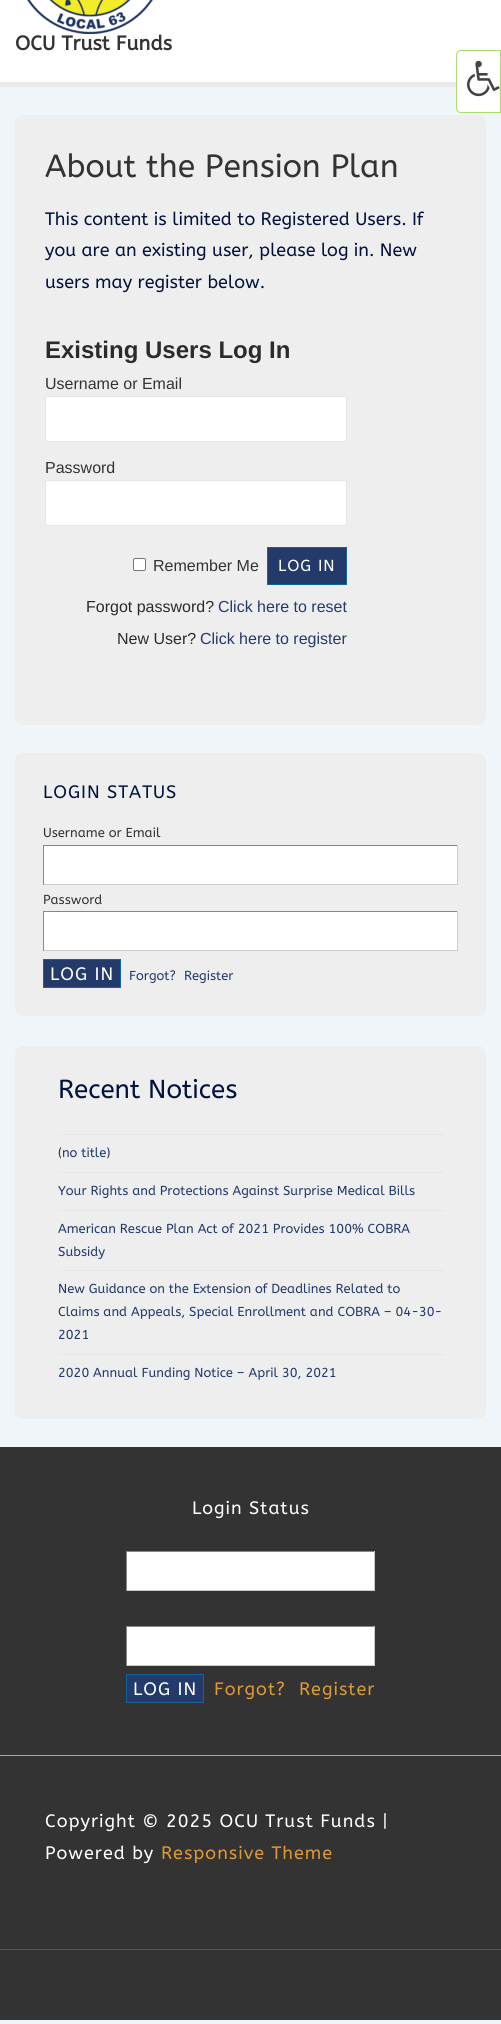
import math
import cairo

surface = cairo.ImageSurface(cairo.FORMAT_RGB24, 501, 2024)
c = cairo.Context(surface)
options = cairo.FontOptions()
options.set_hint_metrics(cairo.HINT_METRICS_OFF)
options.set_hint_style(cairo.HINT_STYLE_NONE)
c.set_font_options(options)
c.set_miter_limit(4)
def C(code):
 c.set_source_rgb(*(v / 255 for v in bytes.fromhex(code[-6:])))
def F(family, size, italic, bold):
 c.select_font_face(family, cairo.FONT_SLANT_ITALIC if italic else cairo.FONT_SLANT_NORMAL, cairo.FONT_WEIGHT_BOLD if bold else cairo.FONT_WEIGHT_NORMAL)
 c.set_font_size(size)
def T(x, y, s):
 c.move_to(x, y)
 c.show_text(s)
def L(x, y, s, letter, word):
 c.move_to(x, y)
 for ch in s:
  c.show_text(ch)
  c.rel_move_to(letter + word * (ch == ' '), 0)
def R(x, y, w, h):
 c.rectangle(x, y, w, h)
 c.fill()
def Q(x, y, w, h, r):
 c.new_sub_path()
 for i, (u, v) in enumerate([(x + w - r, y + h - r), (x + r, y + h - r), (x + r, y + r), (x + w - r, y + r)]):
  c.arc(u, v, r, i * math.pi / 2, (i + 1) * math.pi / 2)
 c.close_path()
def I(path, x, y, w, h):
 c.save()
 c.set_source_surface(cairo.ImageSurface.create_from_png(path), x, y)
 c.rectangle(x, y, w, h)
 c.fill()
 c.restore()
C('f0f5fa')
c.paint()
C('ffffff')
R(0,0,501,82)
C('eaeaea')
R(0,82,456,5)
I('1.png',27,0,126,34)
F('ABeeZee',20,0,1)
C('333333')
T(15,50,'OCU Trust Funds')
C('eeeeee')
Q(15,115,471,610,8)
c.fill()
F('ABeeZee',32,0,0)
C('333333')
T(45,177,'About the Pension Plan')
F('ABeeZee',18,0,0)
C('01133d')
T(45,225,'This content is limited to Registered Users. If')
T(45,256,'you are an existing user, please log in. New')
T(45,288,'users may register below.')
F('Liberation Sans',24,0,1)
C('2b2b2b')
T(45,358,'Existing Users Log In')
F('Liberation Sans',16,0,0)
C('333333')
T(45,389,'Username or Email')
C('ffffff')
Q(45.5,396.5,301,45,1.5)
c.fill_preserve()
C('e5e5e5')
c.set_line_width(1)
c.stroke()
C('333333')
T(45,473,'Password')
C('ffffff')
Q(45.5,480.5,301,45,1.5)
c.fill_preserve()
C('e5e5e5')
c.stroke()
C('ffffff')
Q(133.5,558.5,12,12,1.5)
c.fill_preserve()
C('767676')
c.stroke()
C('333333')
T(153,571,'Remember Me')
C('233a6b')
c.rectangle(267.5,547.5,79,37)
c.fill_preserve()
C('10659c')
c.stroke()
F('ABeeZee',16,0,0)
C('ffffff')
L(278,571,'LOG IN',1,0)
F('Liberation Sans',16,0,0)
C('2b2b2b')
T(86,612,'Forgot password?')
C('233a6b')
T(218,612,'Click here to reset')
C('2b2b2b')
T(117,644,'New User?')
C('233a6b')
T(200,644,'Click here to register')
C('eeeeee')
Q(15,753,471,263,8)
c.fill()
F('ABeeZee',18,0,0)
C('01133d')
L(43,798,'LOGIN STATUS',1,0)
F('ABeeZee',13,0,0)
C('333333')
T(43,837,'Username or Email')
C('ffffff')
R(44,846,413,38)
C('888888')
R(43,845,415,1)
C('cccccc')
R(457,845,1,40)
R(43,884,415,1)
C('888888')
R(43,845,1,40)
C('333333')
T(43,904,'Password')
C('ffffff')
R(44,912,413,38)
C('888888')
R(43,911,415,1)
C('cccccc')
R(457,911,1,40)
R(43,950,415,1)
C('888888')
R(43,911,1,40)
C('233a6b')
c.rectangle(43.5,959.5,77,28)
c.fill_preserve()
C('10659c')
c.stroke()
F('ABeeZee',18,0,0)
C('ffffff')
L(50,980,'LOG IN',1,0)
F('ABeeZee',13,0,0)
C('233a6b')
T(129,980,'Forgot?')
T(184,980,'Register')
C('eeeeee')
Q(15,1046,471,373,8)
c.fill()
F('ABeeZee',26,0,0)
C('01133d')
T(58,1098,'Recent Notices')
c.new_path()
c.move_to(58,1134.5)
c.line_to(443,1134.5)
C('e0e0e0')
c.set_dash([1,1])
c.stroke()
F('ABeeZee',13,0,0)
C('233a6b')
T(58,1157,'(no title)')
c.new_path()
c.move_to(58,1172.5)
c.line_to(443,1172.5)
C('e0e0e0')
c.stroke()
C('233a6b')
T(58,1195,'Your Rights and Protections Against Surprise Medical Bills')
c.new_path()
c.move_to(58,1210.5)
c.line_to(443,1210.5)
C('e0e0e0')
c.stroke()
C('233a6b')
T(58,1233,'American Rescue Plan Act of 2021 Provides 100% COBRA')
T(58,1256,'Subsidy')
c.new_path()
c.move_to(58,1270.5)
c.line_to(443,1270.5)
C('e0e0e0')
c.stroke()
C('233a6b')
T(58,1293,'New Guidance on the Extension of Deadlines Related to')
T(58,1316,'Claims and Appeals, Special Enrollment and COBRA – 04-30-')
T(58,1339,'2021')
c.new_path()
c.move_to(58,1354.5)
c.line_to(443,1354.5)
C('e0e0e0')
c.stroke()
C('233a6b')
T(58,1377,'2020 Annual Funding Notice – April 30, 2021')
C('333333')
R(0,1447,501,573)
F('ABeeZee',18,0,0)
C('ffffff')
L(192,1514,'Login Status',1,0)
R(127,1552,247,38)
C('888888')
R(126,1551,249,1)
C('cccccc')
R(374,1551,1,40)
R(126,1590,249,1)
C('888888')
R(126,1551,1,40)
C('ffffff')
R(127,1627,247,38)
C('888888')
R(126,1626,249,1)
C('cccccc')
R(374,1626,1,40)
R(126,1665,249,1)
C('888888')
R(126,1626,1,40)
C('233a6b')
c.rectangle(126.5,1674.5,77,28)
c.fill_preserve()
C('10659c')
c.set_dash([])
c.stroke()
C('ffffff')
L(133,1695,'LOG IN',1,0)
C('dd9933')
L(214,1695,'Forgot?',1,0)
L(299,1695,'Register',1,0)
C('aaaaaa')
R(0,1755,501,1)
C('ffffff')
L(45,1827,'Copyright © 2025 OCU Trust Funds |',1,0)
L(45,1859,'Powered by',1,0)
C('dd9933')
L(161,1859,'Responsive Theme',1,0)
C('0066cc')
R(0,1949,501,1)
C('ffffff')
c.new_path()
c.move_to(461,50.5)
c.line_to(500.5,50.5)
c.line_to(500.5,112.5)
c.line_to(461,112.5)
c.curve_to(458.5,112.5,456.5,110.5,456.5,108)
c.line_to(456.5,55)
c.curve_to(456.5,52.5,458.5,50.5,461,50.5)
c.close_path()
c.fill_preserve()
C('a9dd6e')
c.stroke()
I('2.png',467,60,33,37)
surface.write_to_png('o.png')
